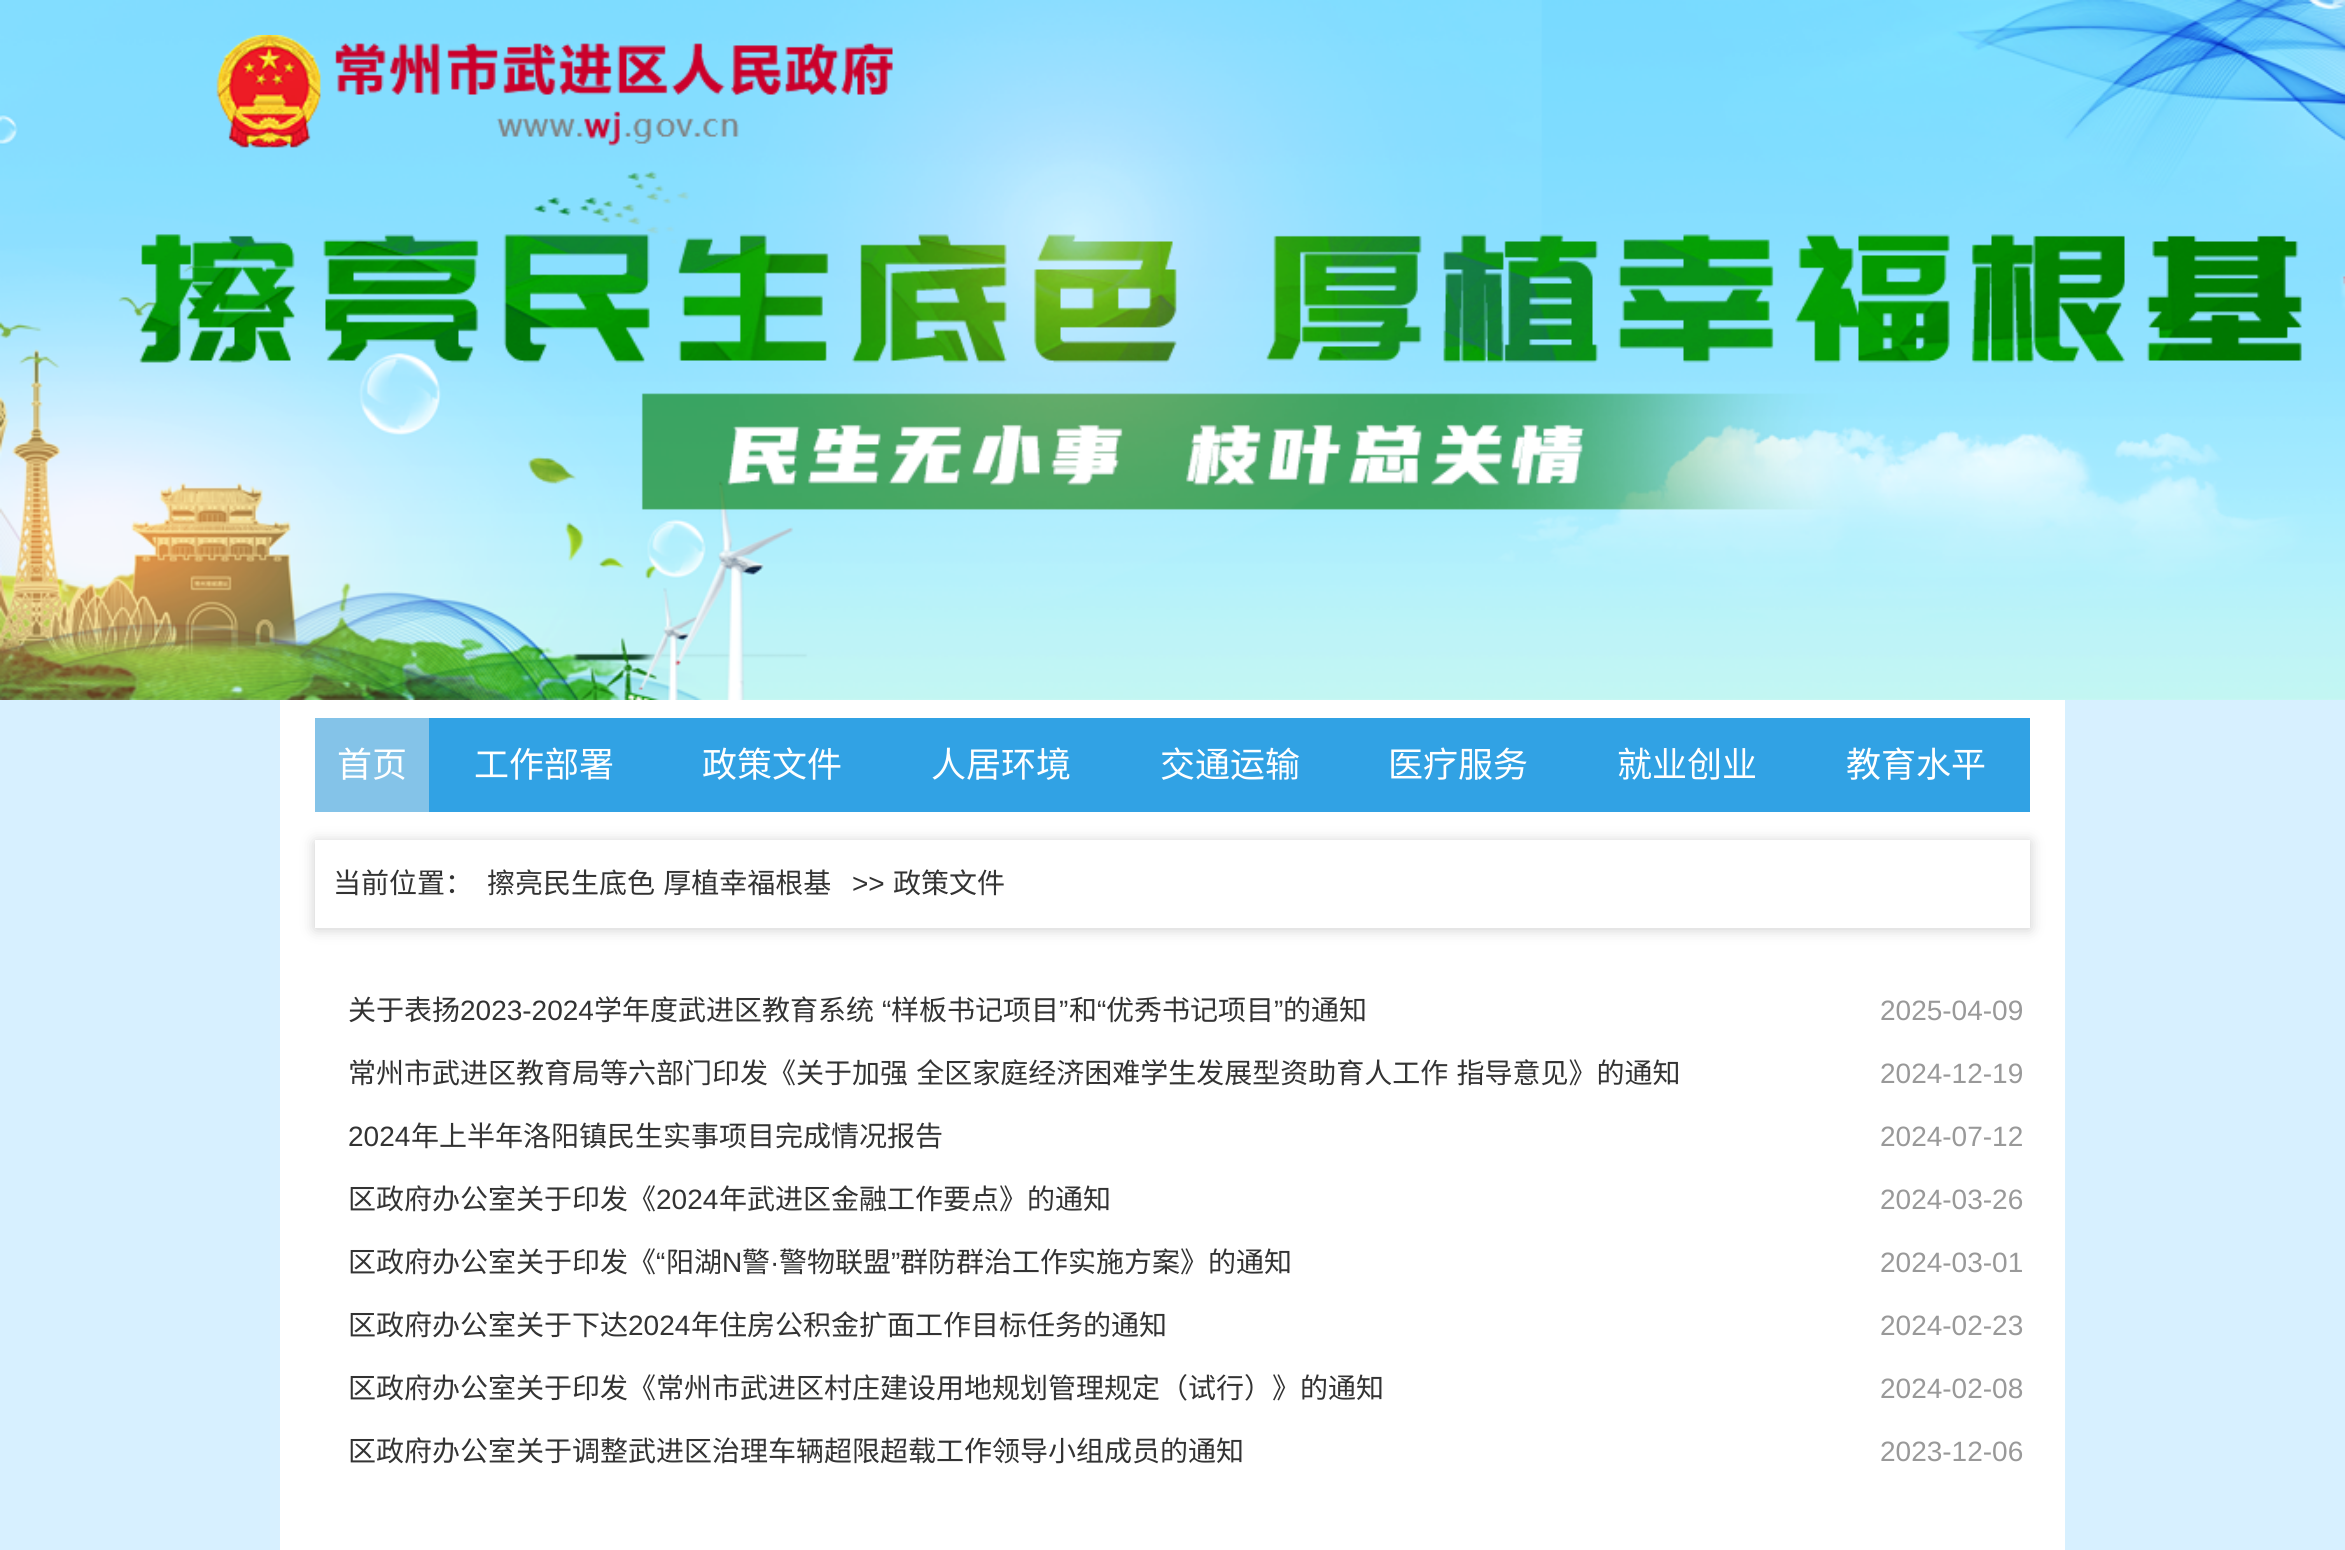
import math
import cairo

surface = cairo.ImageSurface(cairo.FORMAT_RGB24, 2345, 1550)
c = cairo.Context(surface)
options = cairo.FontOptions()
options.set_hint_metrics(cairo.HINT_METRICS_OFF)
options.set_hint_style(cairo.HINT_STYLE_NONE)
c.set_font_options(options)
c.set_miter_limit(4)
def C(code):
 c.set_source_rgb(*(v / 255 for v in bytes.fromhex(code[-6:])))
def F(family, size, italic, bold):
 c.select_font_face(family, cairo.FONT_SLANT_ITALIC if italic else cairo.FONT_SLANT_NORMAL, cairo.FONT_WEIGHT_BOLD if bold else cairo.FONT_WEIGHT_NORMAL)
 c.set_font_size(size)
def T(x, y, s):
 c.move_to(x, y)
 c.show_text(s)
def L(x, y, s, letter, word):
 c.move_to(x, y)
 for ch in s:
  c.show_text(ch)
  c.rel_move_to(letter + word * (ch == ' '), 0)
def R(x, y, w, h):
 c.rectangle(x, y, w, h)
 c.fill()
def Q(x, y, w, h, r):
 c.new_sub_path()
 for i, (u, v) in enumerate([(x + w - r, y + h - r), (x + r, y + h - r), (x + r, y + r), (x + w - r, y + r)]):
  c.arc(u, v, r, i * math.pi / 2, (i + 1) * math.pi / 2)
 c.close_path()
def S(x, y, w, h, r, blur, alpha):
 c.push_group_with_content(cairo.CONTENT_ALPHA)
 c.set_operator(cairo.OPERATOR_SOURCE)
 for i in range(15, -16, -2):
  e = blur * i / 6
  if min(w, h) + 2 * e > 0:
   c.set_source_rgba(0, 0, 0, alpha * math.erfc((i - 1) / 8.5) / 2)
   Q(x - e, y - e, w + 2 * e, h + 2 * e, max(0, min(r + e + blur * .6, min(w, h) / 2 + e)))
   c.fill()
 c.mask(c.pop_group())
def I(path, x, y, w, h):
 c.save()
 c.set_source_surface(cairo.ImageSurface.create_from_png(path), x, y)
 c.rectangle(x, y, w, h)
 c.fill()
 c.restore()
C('d7f0ff')
c.paint()
I('1.png',0,0,2345,700)
I('2.png',216,35,677,113)
C('ffffff')
R(280,700,1785,850)
C('31a2e4')
R(429,718,1601,94)
C('84c3e8')
R(315,718,114,94)
F('Noto Sans CJK SC',35,0,0)
C('ffffff')
T(337,777,'首页')
T(474,777,'工作部署')
T(702,777,'政策文件')
T(931,777,'人居环境')
T(1160,777,'交通运输')
T(1388,777,'医疗服务')
T(1617,777,'就业创业')
T(1846,777,'教育水平')
c.save()
c.set_fill_rule(cairo.FILL_RULE_EVEN_ODD)
c.new_path()
c.move_to(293,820)
c.line_to(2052,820)
c.line_to(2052,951)
c.line_to(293,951)
c.close_path()
c.move_to(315,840)
c.line_to(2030,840)
c.line_to(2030,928)
c.line_to(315,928)
c.close_path()
c.clip()
C('cccccc')
S(315,842,1715,87,0,7,1)
c.restore()
F('Noto Sans CJK SC',28,0,0)
C('333333')
T(333,893,'当前位置：')
L(487,893,'擦亮民生底色 厚植幸福根基',0,2)
F('Liberation Sans',28,0,0)
T(852,893,'>>')
F('Noto Sans CJK SC',28,0,0)
T(893,893,'政策文件')
T(348,1020,'关于表扬')
F('Liberation Sans',28,0,0)
T(460,1020,'2023-2024')
F('Noto Sans CJK SC',28,0,0)
T(594,1020,'学年度武进区教育系统')
F('Liberation Sans',28,0,0)
T(882,1020,'“')
F('Noto Sans CJK SC',28,0,0)
T(891,1020,'样板书记项目')
F('Liberation Sans',28,0,0)
T(1059,1020,'”')
F('Noto Sans CJK SC',28,0,0)
T(1069,1020,'和')
F('Liberation Sans',28,0,0)
T(1097,1020,'“')
F('Noto Sans CJK SC',28,0,0)
T(1106,1020,'优秀书记项目')
F('Liberation Sans',28,0,0)
T(1274,1020,'”')
F('Noto Sans CJK SC',28,0,0)
T(1283,1020,'的通知')
F('Liberation Sans',28,0,0)
C('999999')
T(1880,1020,'2025-04-09')
F('Noto Sans CJK SC',28,0,0)
C('333333')
L(348,1083,'常州市武进区教育局等六部门印发《关于加强 全区家庭经济困难学生发展型资助育人工作 指导意见》的通知',0,2)
F('Liberation Sans',28,0,0)
C('999999')
T(1880,1083,'2024-12-19')
C('333333')
T(348,1146,'2024')
F('Noto Sans CJK SC',28,0,0)
T(411,1146,'年上半年洛阳镇民生实事项目完成情况报告')
F('Liberation Sans',28,0,0)
C('999999')
T(1880,1146,'2024-07-12')
F('Noto Sans CJK SC',28,0,0)
C('333333')
T(348,1209,'区政府办公室关于印发《')
F('Liberation Sans',28,0,0)
T(656,1209,'2024')
F('Noto Sans CJK SC',28,0,0)
T(719,1209,'年武进区金融工作要点》的通知')
F('Liberation Sans',28,0,0)
C('999999')
T(1880,1209,'2024-03-26')
F('Noto Sans CJK SC',28,0,0)
C('333333')
T(348,1272,'区政府办公室关于印发《')
F('Liberation Sans',28,0,0)
T(656,1272,'“')
F('Noto Sans CJK SC',28,0,0)
T(666,1272,'阳湖')
F('Liberation Sans',28,0,0)
T(722,1272,'N')
F('Noto Sans CJK SC',28,0,0)
T(742,1272,'警')
F('Liberation Sans',28,0,0)
T(770,1272,'·')
F('Noto Sans CJK SC',28,0,0)
T(779,1272,'警物联盟')
F('Liberation Sans',28,0,0)
T(891,1272,'”')
F('Noto Sans CJK SC',28,0,0)
T(900,1272,'群防群治工作实施方案》的通知')
F('Liberation Sans',28,0,0)
C('999999')
T(1880,1272,'2024-03-01')
F('Noto Sans CJK SC',28,0,0)
C('333333')
T(348,1335,'区政府办公室关于下达')
F('Liberation Sans',28,0,0)
T(628,1335,'2024')
F('Noto Sans CJK SC',28,0,0)
T(691,1335,'年住房公积金扩面工作目标任务的通知')
F('Liberation Sans',28,0,0)
C('999999')
T(1880,1335,'2024-02-23')
F('Noto Sans CJK SC',28,0,0)
C('333333')
T(348,1398,'区政府办公室关于印发《常州市武进区村庄建设用地规划管理规定（试行）》的通知')
F('Liberation Sans',28,0,0)
C('999999')
T(1880,1398,'2024-02-08')
F('Noto Sans CJK SC',28,0,0)
C('333333')
T(348,1461,'区政府办公室关于调整武进区治理车辆超限超载工作领导小组成员的通知')
F('Liberation Sans',28,0,0)
C('999999')
T(1880,1461,'2023-12-06')
surface.write_to_png('o.png')
